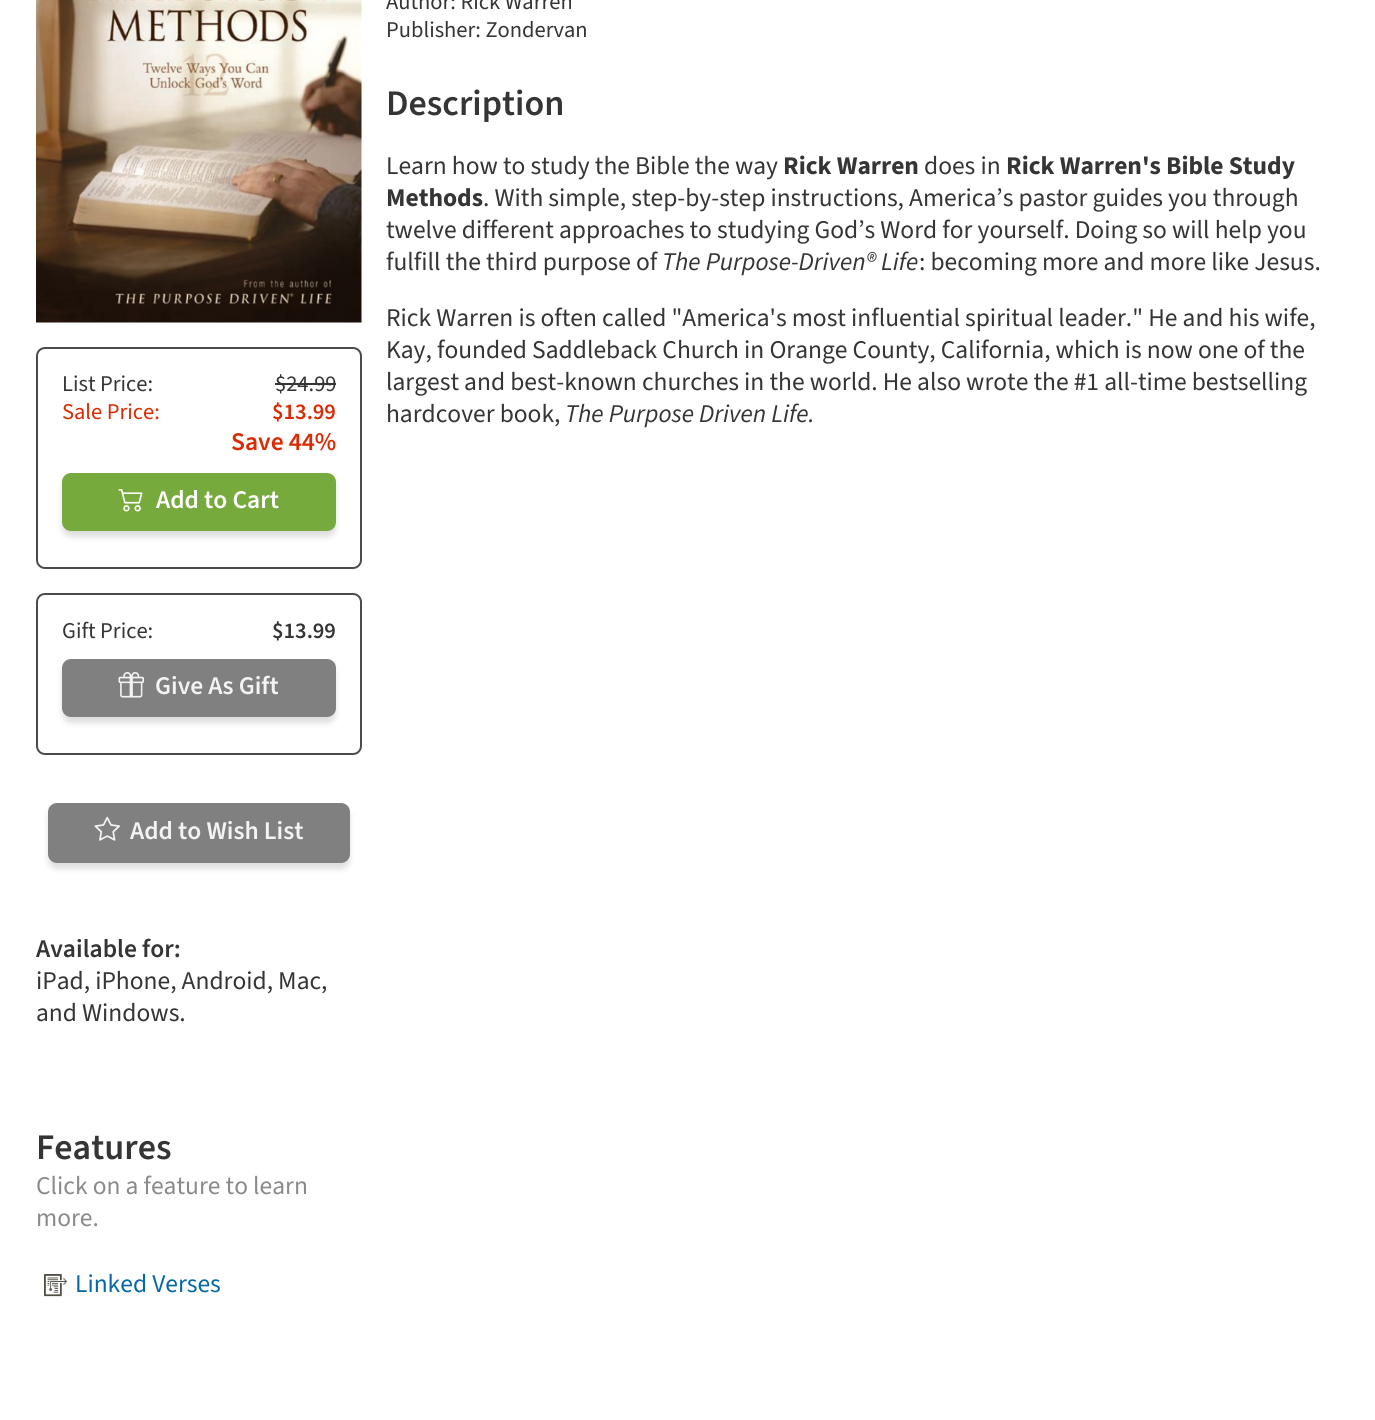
import math
import cairo

surface = cairo.ImageSurface(cairo.FORMAT_RGB24, 1375, 1420)
c = cairo.Context(surface)
options = cairo.FontOptions()
options.set_hint_metrics(cairo.HINT_METRICS_OFF)
options.set_hint_style(cairo.HINT_STYLE_NONE)
c.set_font_options(options)
c.set_miter_limit(4)
def C(code):
 c.set_source_rgb(*(v / 255 for v in bytes.fromhex(code[-6:])))
def F(family, size, italic, bold):
 c.select_font_face(family, cairo.FONT_SLANT_ITALIC if italic else cairo.FONT_SLANT_NORMAL, cairo.FONT_WEIGHT_BOLD if bold else cairo.FONT_WEIGHT_NORMAL)
 c.set_font_size(size)
def T(x, y, s):
 c.move_to(x, y)
 c.show_text(s)
def R(x, y, w, h):
 c.rectangle(x, y, w, h)
 c.fill()
def Q(x, y, w, h, r):
 c.new_sub_path()
 for i, (u, v) in enumerate([(x + w - r, y + h - r), (x + r, y + h - r), (x + r, y + r), (x + w - r, y + r)]):
  c.arc(u, v, r, i * math.pi / 2, (i + 1) * math.pi / 2)
 c.close_path()
def S(x, y, w, h, r, blur, alpha):
 c.push_group_with_content(cairo.CONTENT_ALPHA)
 c.set_operator(cairo.OPERATOR_SOURCE)
 for i in range(15, -16, -2):
  e = blur * i / 6
  if min(w, h) + 2 * e > 0:
   c.set_source_rgba(0, 0, 0, alpha * math.erfc((i - 1) / 8.5) / 2)
   Q(x - e, y - e, w + 2 * e, h + 2 * e, max(0, min(r + e + blur * .6, min(w, h) / 2 + e)))
   c.fill()
 c.mask(c.pop_group())
def I(path, x, y, w, h):
 c.save()
 c.set_source_surface(cairo.ImageSurface.create_from_png(path), x, y)
 c.rectangle(x, y, w, h)
 c.fill()
 c.restore()
C('ffffff')
c.paint()
F('Source Sans 3',22.5,0,0)
C('353535')
T(386,9,'Author: Rick Warren')
T(386,37,'Publisher: Zondervan')
F('Source Sans 3 SemiBold',36,0,0)
T(386,115,'Description')
F('Source Sans 3',25.5,0,0)
T(386,174,'Learn how to study the Bible the way')
F('Source Sans 3',25.5,0,1)
T(783,174,'Rick Warren')
F('Source Sans 3',25.5,0,0)
T(924,174,'does in')
F('Source Sans 3',25.5,0,1)
T(1006,174,'Rick Warren\'s Bible Study')
T(386,206,'Methods')
F('Source Sans 3',25.5,0,0)
T(483,206,'. With simple, step-by-step instructions, America’s pastor guides you through')
T(386,238,'twelve different approaches to studying God’s Word for yourself. Doing so will help you')
T(386,270,'fulfill the third purpose of')
F('Source Sans 3',25.5,1,0)
T(662,270,'The Purpose-Driven® Life')
F('Source Sans 3',25.5,0,0)
T(919,270,': becoming more and more like Jesus.')
T(386,326,'Rick Warren is often called "America\'s most influential spiritual leader." He and his wife,')
T(386,358,'Kay, founded Saddleback Church in Orange County, California, which is now one of the')
T(386,390,'largest and best-known churches in the world. He also wrote the #1 all-time bestselling')
T(386,422,'hardcover book,')
F('Source Sans 3',25.5,1,0)
T(565,422,'The Purpose Driven Life.')
I('1.png',36,0,326,323)
Q(37,348,324,220,8)
C('4b4b4b')
c.stroke()
F('Source Sans 3',22.5,0,0)
C('353535')
T(62,391,'List Price:')
T(275,391,'$24.99')
R(275,383,61,2)
C('d92b04')
T(62,419,'Sale Price:')
F('Source Sans 3 SemiBold',22.5,0,0)
T(272,419,'$13.99')
F('Source Sans 3 SemiBold',25.5,0,0)
T(231,450,'Save 44%')
C('000000')
S(62,479,274,58,9,3,.13)
C('77aa3c')
Q(63,474,272,56,8)
c.fill_preserve()
c.stroke()
I('2.png',118,489,25,23)
C('ffffff')
T(156,508,'Add to Cart')
Q(37,594,324,160,8)
C('4b4b4b')
c.stroke()
F('Source Sans 3',22.5,0,0)
C('353535')
T(62,638,'Gift Price:')
F('Source Sans 3 SemiBold',22.5,0,0)
T(272,638,'$13.99')
C('000000')
S(62,665,274,58,9,3,.13)
C('808080')
Q(63,660,272,56,8)
c.fill_preserve()
c.stroke()
I('3.png',118,672,26,26)
F('Source Sans 3 SemiBold',25.5,0,0)
C('f3f3f3')
T(155,694,'Give As Gift')
C('000000')
S(48,809,302,60,9,3,.13)
C('808080')
Q(49,804,300,58,8)
c.fill_preserve()
c.stroke()
I('4.png',94,816,26,25)
C('f3f3f3')
T(130,839,'Add to Wish List')
C('353535')
T(36,957,'Available for:')
F('Source Sans 3',25.5,0,0)
T(36,989,'iPad, iPhone, Android, Mac,')
T(36,1021,'and Windows.')
F('Source Sans 3 SemiBold',36,0,0)
T(36,1159,'Features')
F('Source Sans 3',25.5,0,0)
C('8a8a8a')
T(36,1194,'Click on a feature to learn')
T(36,1226,'more.')
I('5.png',44,1274,23,23)
C('0769a3')
T(75,1292,'Linked Verses')
surface.write_to_png('o.png')
